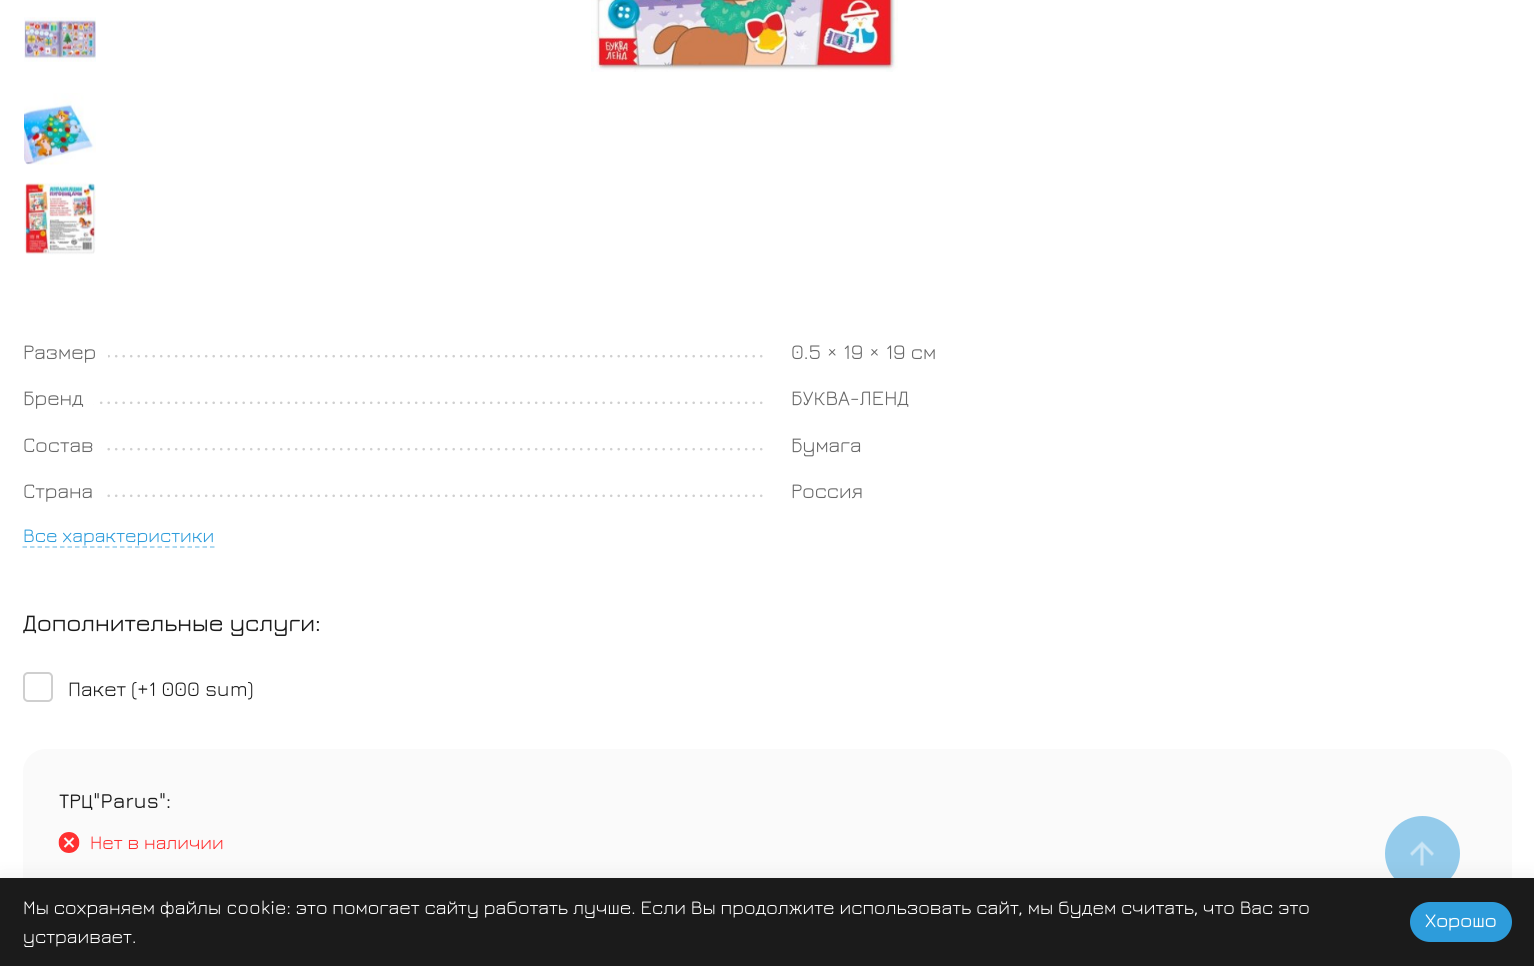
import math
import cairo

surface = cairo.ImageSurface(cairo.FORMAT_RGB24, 1534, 966)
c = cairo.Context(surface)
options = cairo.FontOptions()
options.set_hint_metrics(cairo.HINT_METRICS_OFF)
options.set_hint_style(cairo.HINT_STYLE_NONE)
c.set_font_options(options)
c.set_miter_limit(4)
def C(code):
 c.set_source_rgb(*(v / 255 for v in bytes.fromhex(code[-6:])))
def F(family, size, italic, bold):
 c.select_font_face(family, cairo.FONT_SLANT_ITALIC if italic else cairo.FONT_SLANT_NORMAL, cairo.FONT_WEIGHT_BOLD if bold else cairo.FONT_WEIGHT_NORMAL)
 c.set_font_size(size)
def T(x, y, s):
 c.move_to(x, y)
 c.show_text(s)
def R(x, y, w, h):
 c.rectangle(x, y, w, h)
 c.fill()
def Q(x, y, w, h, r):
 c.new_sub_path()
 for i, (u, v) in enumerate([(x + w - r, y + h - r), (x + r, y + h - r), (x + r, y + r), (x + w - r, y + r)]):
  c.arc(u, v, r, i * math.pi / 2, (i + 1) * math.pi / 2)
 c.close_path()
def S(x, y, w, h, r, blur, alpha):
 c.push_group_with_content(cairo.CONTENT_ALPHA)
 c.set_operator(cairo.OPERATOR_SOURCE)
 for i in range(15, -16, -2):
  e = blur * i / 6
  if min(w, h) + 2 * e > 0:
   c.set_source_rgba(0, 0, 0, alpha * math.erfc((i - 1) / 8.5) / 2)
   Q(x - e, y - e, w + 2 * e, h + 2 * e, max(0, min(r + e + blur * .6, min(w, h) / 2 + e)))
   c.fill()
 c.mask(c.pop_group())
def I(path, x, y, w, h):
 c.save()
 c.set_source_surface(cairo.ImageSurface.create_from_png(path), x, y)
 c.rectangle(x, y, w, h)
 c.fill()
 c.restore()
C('ffffff')
c.paint()
I('1.png',24,17,72,45)
I('2.png',24,93,72,72)
I('3.png',24,182,72,73)
I('4.png',591,0,307,72)
c.new_path()
c.move_to(26.2,356.2)
c.line_to(761.5,356.2)
C('cfcfcf')
c.set_line_width(2.6)
c.set_line_cap(cairo.LINE_CAP_ROUND)
c.set_dash([0,7.5])
c.stroke()
C('ffffff')
R(25,355,83,3)
F('Jura',21,0,0)
C('686868')
T(23,359,'Размер')
T(791,359,'0.5 × 19 × 19 см')
c.new_path()
c.move_to(26.2,402.8)
c.line_to(761.5,402.8)
C('cfcfcf')
c.stroke()
C('ffffff')
R(25,401,70,3)
C('686868')
T(23,405,'Бренд')
T(791,405,'БУКВА-ЛЕНД')
c.new_path()
c.move_to(26.2,449.2)
c.line_to(761.5,449.2)
C('cfcfcf')
c.stroke()
C('ffffff')
R(25,448,78,3)
C('686868')
T(23,452,'Состав')
T(791,452,'Бумага')
c.new_path()
c.move_to(26.2,495.8)
c.line_to(761.5,495.8)
C('cfcfcf')
c.stroke()
C('ffffff')
R(25,494,78,3)
C('686868')
T(23,498,'Страна')
T(791,498,'Россия')
F('Jura',19.5,0,0)
C('2d9cdb')
T(23,542,'Все характеристики')
c.new_path()
c.move_to(22.5,547)
c.line_to(214.5,547)
C('96ceed')
c.set_line_width(1.5)
c.set_line_cap(cairo.LINE_CAP_BUTT)
c.set_dash([4.5,3])
c.stroke()
F('Jura Medium',24,0,0)
C('1b1b1b')
T(23,631,'Дополнительные услуги:')
Q(24,673,28,28,4)
C('cfcfcf')
c.set_line_width(2)
c.set_dash([])
c.stroke()
F('Jura',21,0,0)
C('1b1b1b')
T(68,696,'Пакет (+1 000 sum)')
C('fafafa')
Q(23,749,1489,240,23)
c.fill()
F('Jura Medium',21,0,0)
C('1b1b1b')
T(59,808,'ТРЦ"Parus":')
I('5.png',58,832,22,21)
F('Jura',19.5,0,0)
C('ff3131')
T(90,849,'Нет в наличии')
C('94cbeb')
c.new_path()
c.arc(1422.5,853.5,37.5,0,2 * math.pi)
c.fill()
I('6.png',1410,841,24,25)
C('000000')
S(0,878,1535,88,0,11,.07)
C('1b1b1b')
R(0,878,1534,88)
C('ffffff')
T(23,914,'Мы сохраняем файлы cookie: это помогает сайту работать лучше. Если Вы продолжите использовать сайт, мы будем считать, что Вас это')
T(23,943,'устраивает.')
C('2d9cdb')
Q(1410,902,102,40,20)
c.fill()
F('Jura Medium',19.5,0,0)
C('ffffff')
T(1425,927,'Хорошо')
surface.write_to_png('o.png')
